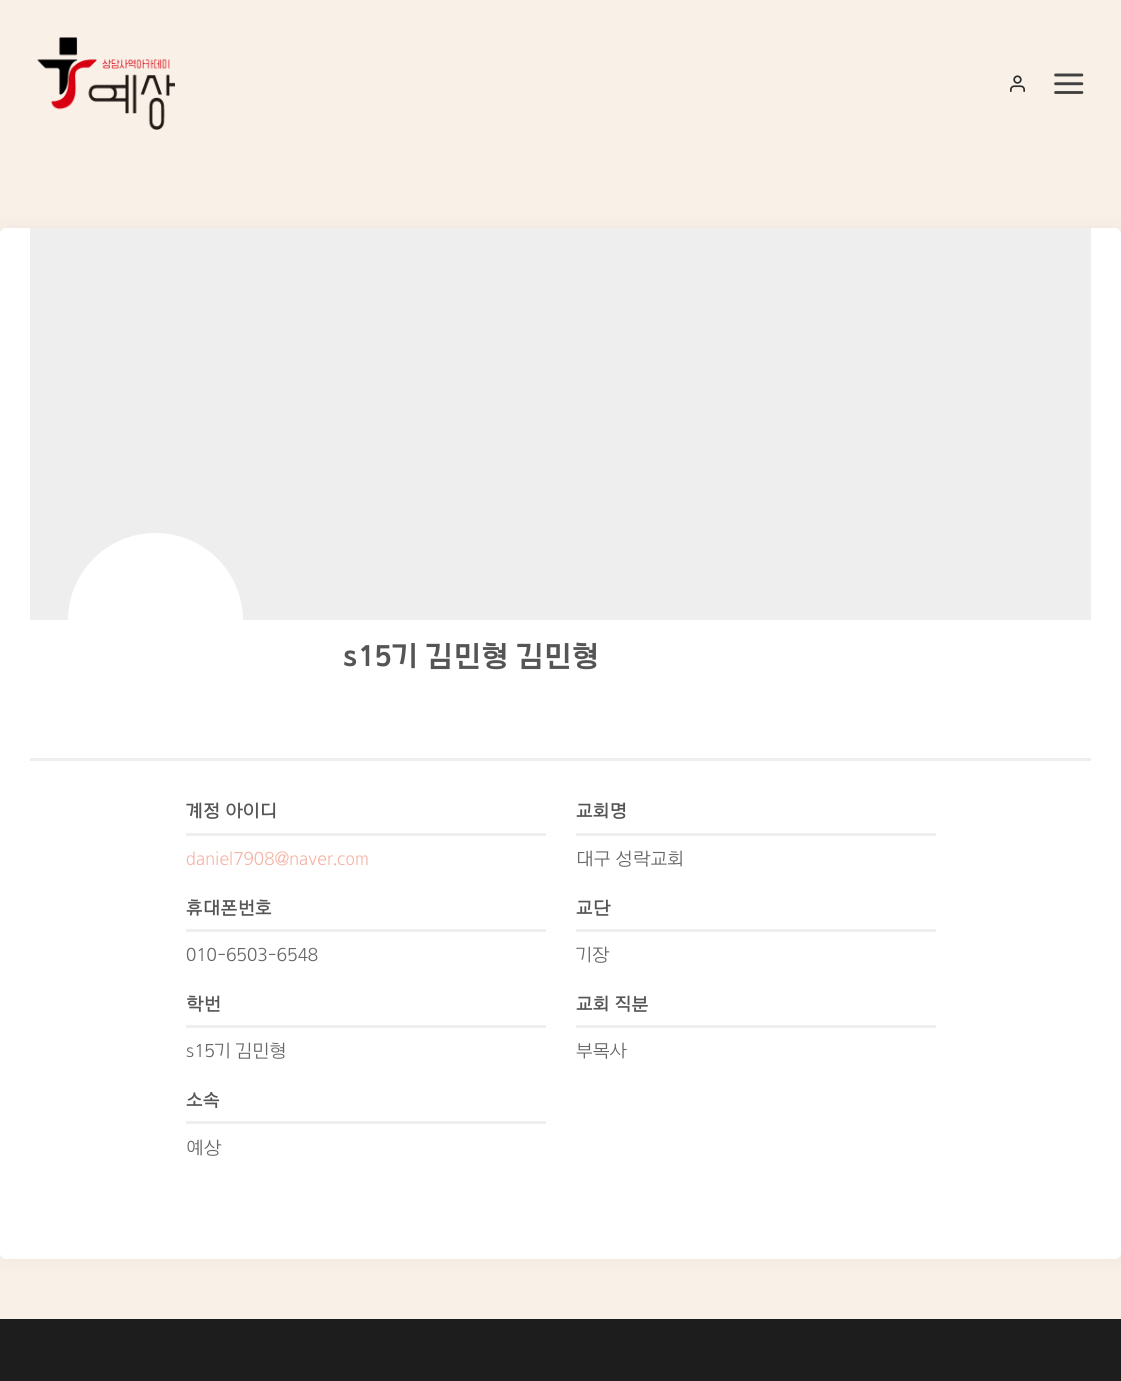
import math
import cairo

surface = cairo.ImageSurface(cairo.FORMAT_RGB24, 1121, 1381)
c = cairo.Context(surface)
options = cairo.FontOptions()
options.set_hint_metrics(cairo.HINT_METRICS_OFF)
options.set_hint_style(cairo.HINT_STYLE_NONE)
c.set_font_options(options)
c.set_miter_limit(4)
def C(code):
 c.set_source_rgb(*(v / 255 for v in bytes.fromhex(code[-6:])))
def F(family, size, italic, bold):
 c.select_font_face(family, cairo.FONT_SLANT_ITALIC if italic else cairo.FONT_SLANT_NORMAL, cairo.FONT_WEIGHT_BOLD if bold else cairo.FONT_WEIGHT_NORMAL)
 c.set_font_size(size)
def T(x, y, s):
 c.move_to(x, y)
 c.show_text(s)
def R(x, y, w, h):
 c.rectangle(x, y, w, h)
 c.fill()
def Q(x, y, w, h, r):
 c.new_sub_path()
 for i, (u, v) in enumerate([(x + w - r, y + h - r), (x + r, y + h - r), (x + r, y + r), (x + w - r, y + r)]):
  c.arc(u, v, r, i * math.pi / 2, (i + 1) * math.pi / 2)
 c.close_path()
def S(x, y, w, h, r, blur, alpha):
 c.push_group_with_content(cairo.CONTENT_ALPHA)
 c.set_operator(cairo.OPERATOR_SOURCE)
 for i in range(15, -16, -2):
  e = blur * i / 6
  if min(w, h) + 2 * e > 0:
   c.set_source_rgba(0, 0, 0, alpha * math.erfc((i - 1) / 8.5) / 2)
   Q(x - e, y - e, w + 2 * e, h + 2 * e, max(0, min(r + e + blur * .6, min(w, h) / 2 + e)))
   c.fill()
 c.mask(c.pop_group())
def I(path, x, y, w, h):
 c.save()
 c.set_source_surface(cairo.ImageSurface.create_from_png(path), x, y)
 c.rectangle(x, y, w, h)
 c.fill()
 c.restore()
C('f9f1e7')
c.paint()
I('1.png',37,37,138,93)
I('2.png',1010,75,15,17)
I('3.png',1054,73,30,21)
C('000000')
S(0,228,1121,1031,6,9.5,.05)
C('ffffff')
Q(0,228,1121,1031,6)
c.fill()
C('eeeeee')
R(30,228,1061,392)
R(30,758,1061,3)
C('ffffff')
c.arc(155.5,620.5,84.5,0,2 * math.pi)
c.fill_preserve()
c.set_line_width(6)
c.stroke()
F('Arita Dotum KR',30,0,1)
C('555555')
T(343,666,'s15기 김민형 김민형')
C('eeeeee')
R(186,833,360,3)
F('Arita Dotum KR SemiBold',18.75,0,0)
C('555555')
T(186,817,'계정 아이디')
F('Arita Dotum KR Medium',18.75,0,0)
C('f5b5a7')
T(186,865,'daniel7908@naver.com')
C('eeeeee')
R(186,929,360,3)
F('Arita Dotum KR SemiBold',18.75,0,0)
C('555555')
T(186,914,'휴대폰번호')
F('Arita Dotum KR Medium',18.75,0,0)
C('666666')
T(186,961,'010-6503-6548')
C('eeeeee')
R(186,1025,360,3)
F('Arita Dotum KR SemiBold',18.75,0,0)
C('555555')
T(186,1010,'학번')
F('Arita Dotum KR Medium',18.75,0,0)
C('666666')
T(186,1057,'s15기 김민형')
C('eeeeee')
R(186,1121,360,3)
F('Arita Dotum KR SemiBold',18.75,0,0)
C('555555')
T(186,1106,'소속')
F('Arita Dotum KR Medium',18.75,0,0)
C('666666')
T(186,1154,'예상')
C('eeeeee')
R(576,833,360,3)
F('Arita Dotum KR SemiBold',18.75,0,0)
C('555555')
T(576,817,'교회명')
F('Arita Dotum KR Medium',18.75,0,0)
C('666666')
T(576,865,'대구 성락교회')
C('eeeeee')
R(576,929,360,3)
F('Arita Dotum KR SemiBold',18.75,0,0)
C('555555')
T(576,914,'교단')
F('Arita Dotum KR Medium',18.75,0,0)
C('666666')
T(576,961,'기장')
C('eeeeee')
R(576,1025,360,3)
F('Arita Dotum KR SemiBold',18.75,0,0)
C('555555')
T(576,1010,'교회 직분')
F('Arita Dotum KR Medium',18.75,0,0)
C('666666')
T(576,1057,'부목사')
C('1d1d1d')
R(0,1319,1121,62)
surface.write_to_png('o.png')
